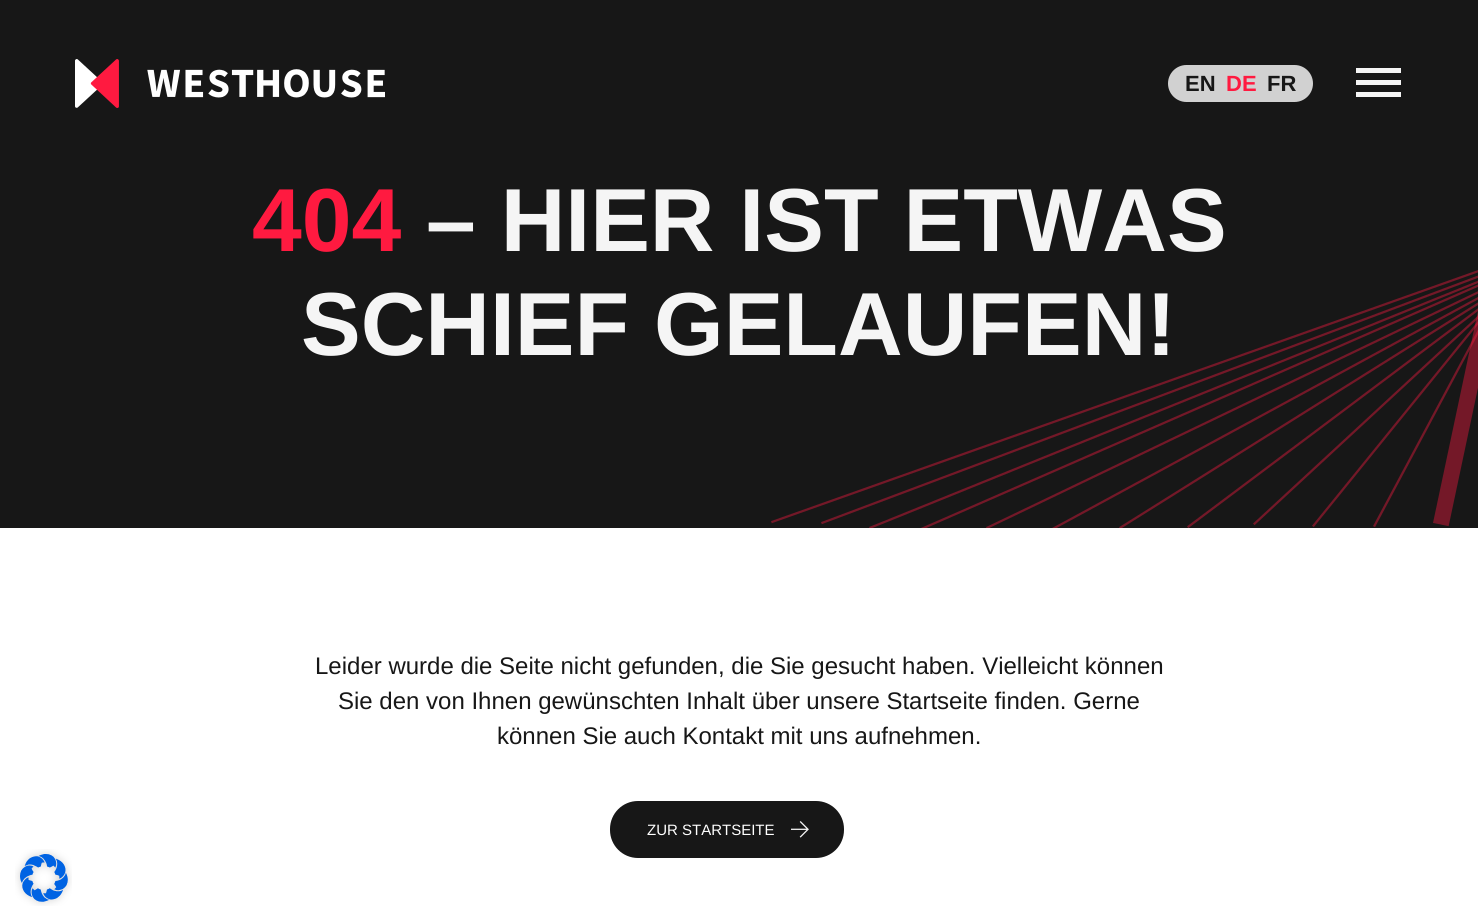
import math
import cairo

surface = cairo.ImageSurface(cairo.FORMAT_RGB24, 1478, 922)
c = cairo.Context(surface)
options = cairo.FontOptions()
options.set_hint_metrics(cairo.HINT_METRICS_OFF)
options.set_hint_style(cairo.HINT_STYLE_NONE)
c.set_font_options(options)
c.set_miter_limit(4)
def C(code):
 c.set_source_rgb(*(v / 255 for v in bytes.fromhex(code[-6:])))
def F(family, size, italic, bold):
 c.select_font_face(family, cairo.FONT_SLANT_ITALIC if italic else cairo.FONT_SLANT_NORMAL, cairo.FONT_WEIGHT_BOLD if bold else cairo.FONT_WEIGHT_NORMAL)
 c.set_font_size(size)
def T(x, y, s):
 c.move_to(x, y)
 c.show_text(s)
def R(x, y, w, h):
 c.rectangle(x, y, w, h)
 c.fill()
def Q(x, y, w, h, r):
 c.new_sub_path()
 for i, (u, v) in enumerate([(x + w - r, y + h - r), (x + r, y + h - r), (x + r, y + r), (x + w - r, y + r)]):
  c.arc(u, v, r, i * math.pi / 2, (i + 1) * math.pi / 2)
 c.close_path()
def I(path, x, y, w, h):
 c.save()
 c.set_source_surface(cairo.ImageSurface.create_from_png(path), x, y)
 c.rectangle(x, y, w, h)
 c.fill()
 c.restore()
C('ffffff')
c.paint()
C('171717')
R(0,0,1478,528)
I('1.png',75,59,310,49)
C('d1d1d1')
Q(1168,65,145,37,18.5)
c.fill()
F('Liberation Sans',22,0,1)
C('171717')
T(1185,91,'EN')
C('ff1a40')
T(1226,91,'DE')
C('171717')
T(1267,91,'FR')
C('f5f5f5')
R(1356,68,45,5)
R(1356,80,45,5)
R(1356,92,45,5)
I('2.png',771,270,707,258)
F('Liberation Sans',89.5,0,1)
C('ff1a40')
T(252,251,'404')
C('f5f5f5')
T(426,251,'– HIER IST ETWAS')
T(301,355,'SCHIEF GELAUFEN!')
F('Liberation Sans',24,0,0)
C('171717')
T(315,674,'Leider wurde die Seite nicht gefunden, die Sie gesucht haben. Vielleicht können')
T(338,709,'Sie den von Ihnen gewünschten Inhalt über unsere Startseite finden. Gerne')
T(497,744,'können Sie auch Kontakt mit uns aufnehmen.')
Q(610,801,234,57,28)
c.fill()
F('Liberation Sans',15,0,0)
C('ffffff')
T(647,835,'ZUR STARTSEITE')
I('3.png',791,821,18,17)
I('4.png',15,849,57,57)
surface.write_to_png('o.png')
